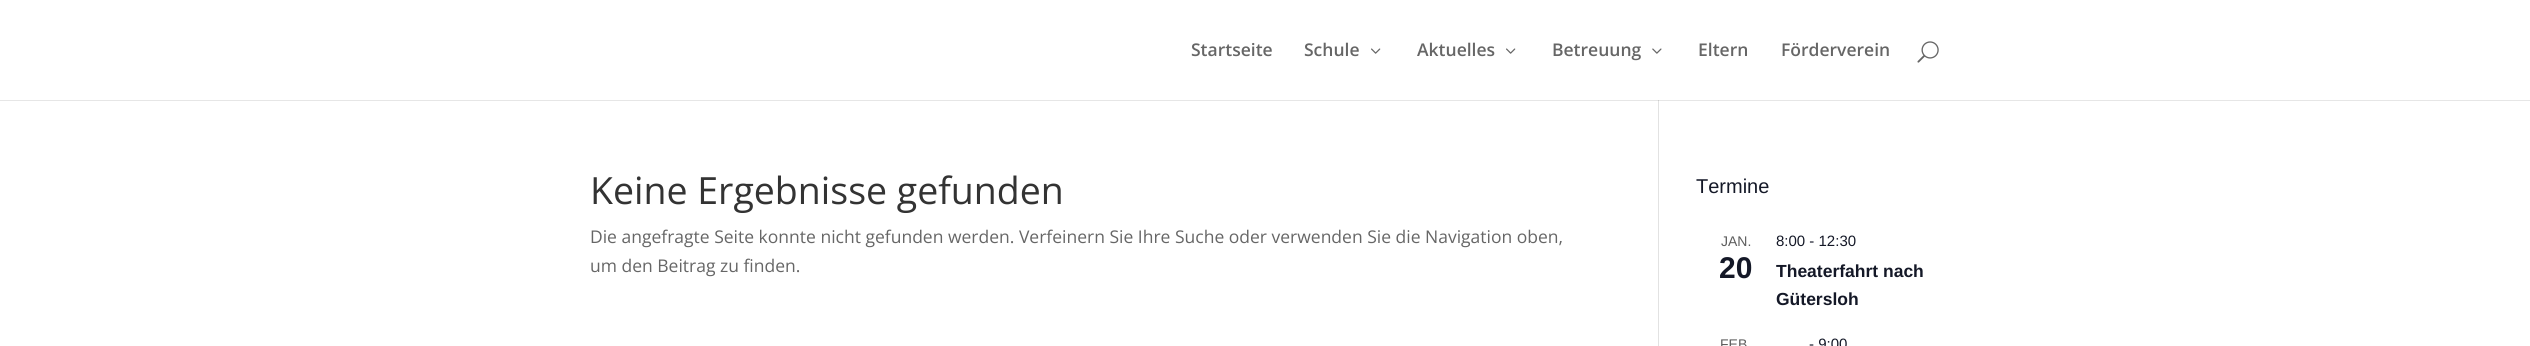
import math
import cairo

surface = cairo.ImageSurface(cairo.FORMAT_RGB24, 2530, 346)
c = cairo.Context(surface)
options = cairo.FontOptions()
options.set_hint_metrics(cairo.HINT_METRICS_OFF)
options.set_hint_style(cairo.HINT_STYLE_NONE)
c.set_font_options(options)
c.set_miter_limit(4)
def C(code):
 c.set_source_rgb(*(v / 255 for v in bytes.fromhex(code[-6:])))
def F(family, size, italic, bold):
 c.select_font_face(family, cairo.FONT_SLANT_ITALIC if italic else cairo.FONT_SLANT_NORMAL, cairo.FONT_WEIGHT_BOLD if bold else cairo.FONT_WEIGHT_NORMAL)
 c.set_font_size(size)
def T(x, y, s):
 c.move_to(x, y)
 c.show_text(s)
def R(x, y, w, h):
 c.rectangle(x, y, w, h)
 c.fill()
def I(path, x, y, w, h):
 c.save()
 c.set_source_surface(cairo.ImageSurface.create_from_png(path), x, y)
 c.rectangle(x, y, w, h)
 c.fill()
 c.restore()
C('ffffff')
c.paint()
C('e6e6e6')
R(0,100,2530,1)
C('e2e2e2')
R(1658,99,1,247)
C('ffffff')
R(1658,99,1,1)
F('Open Sans SemiBold',17.5,0,0)
C('666666')
T(1191,56,'Startseite')
T(1304,56,'Schule')
I('1.png',1371,48,10,6)
T(1417,56,'Aktuelles')
I('1.png',1506,48,10,6)
T(1552,56,'Betreuung')
I('2.png',1652,48,10,6)
T(1698,56,'Eltern')
T(1781,56,'Förderverein')
I('3.png',1917,41,22,22)
C('cbcbcb')
R(1658,100,1,1)
F('Open Sans',37.5,0,0)
C('333333')
T(590,204,'Keine Ergebnisse gefunden')
F('Open Sans',17.5,0,0)
C('666666')
T(590,243,'Die angefragte Seite konnte nicht gefunden werden. Verfeinern Sie Ihre Suche oder verwenden Sie die Navigation oben,')
T(590,272,'um den Beitrag zu finden.')
F('Liberation Sans',20,0,0)
C('141827')
T(1696,193,'Termine')
F('Liberation Sans',14,0,0)
C('5d5d5d')
T(1721,246,'JAN.')
F('Liberation Sans',30,0,1)
C('141827')
T(1719,278,'20')
F('Liberation Sans',15,0,0)
T(1776,246,'8:00 - 12:30')
F('Liberation Sans',17.5,0,1)
T(1776,277,'Theaterfahrt nach')
T(1776,305,'Gütersloh')
F('Liberation Sans',14,0,0)
C('5d5d5d')
T(1720,349,'FEB')
F('Liberation Sans',15,0,0)
C('141827')
T(1809,349,'- 9:00')
surface.write_to_png('o.png')
